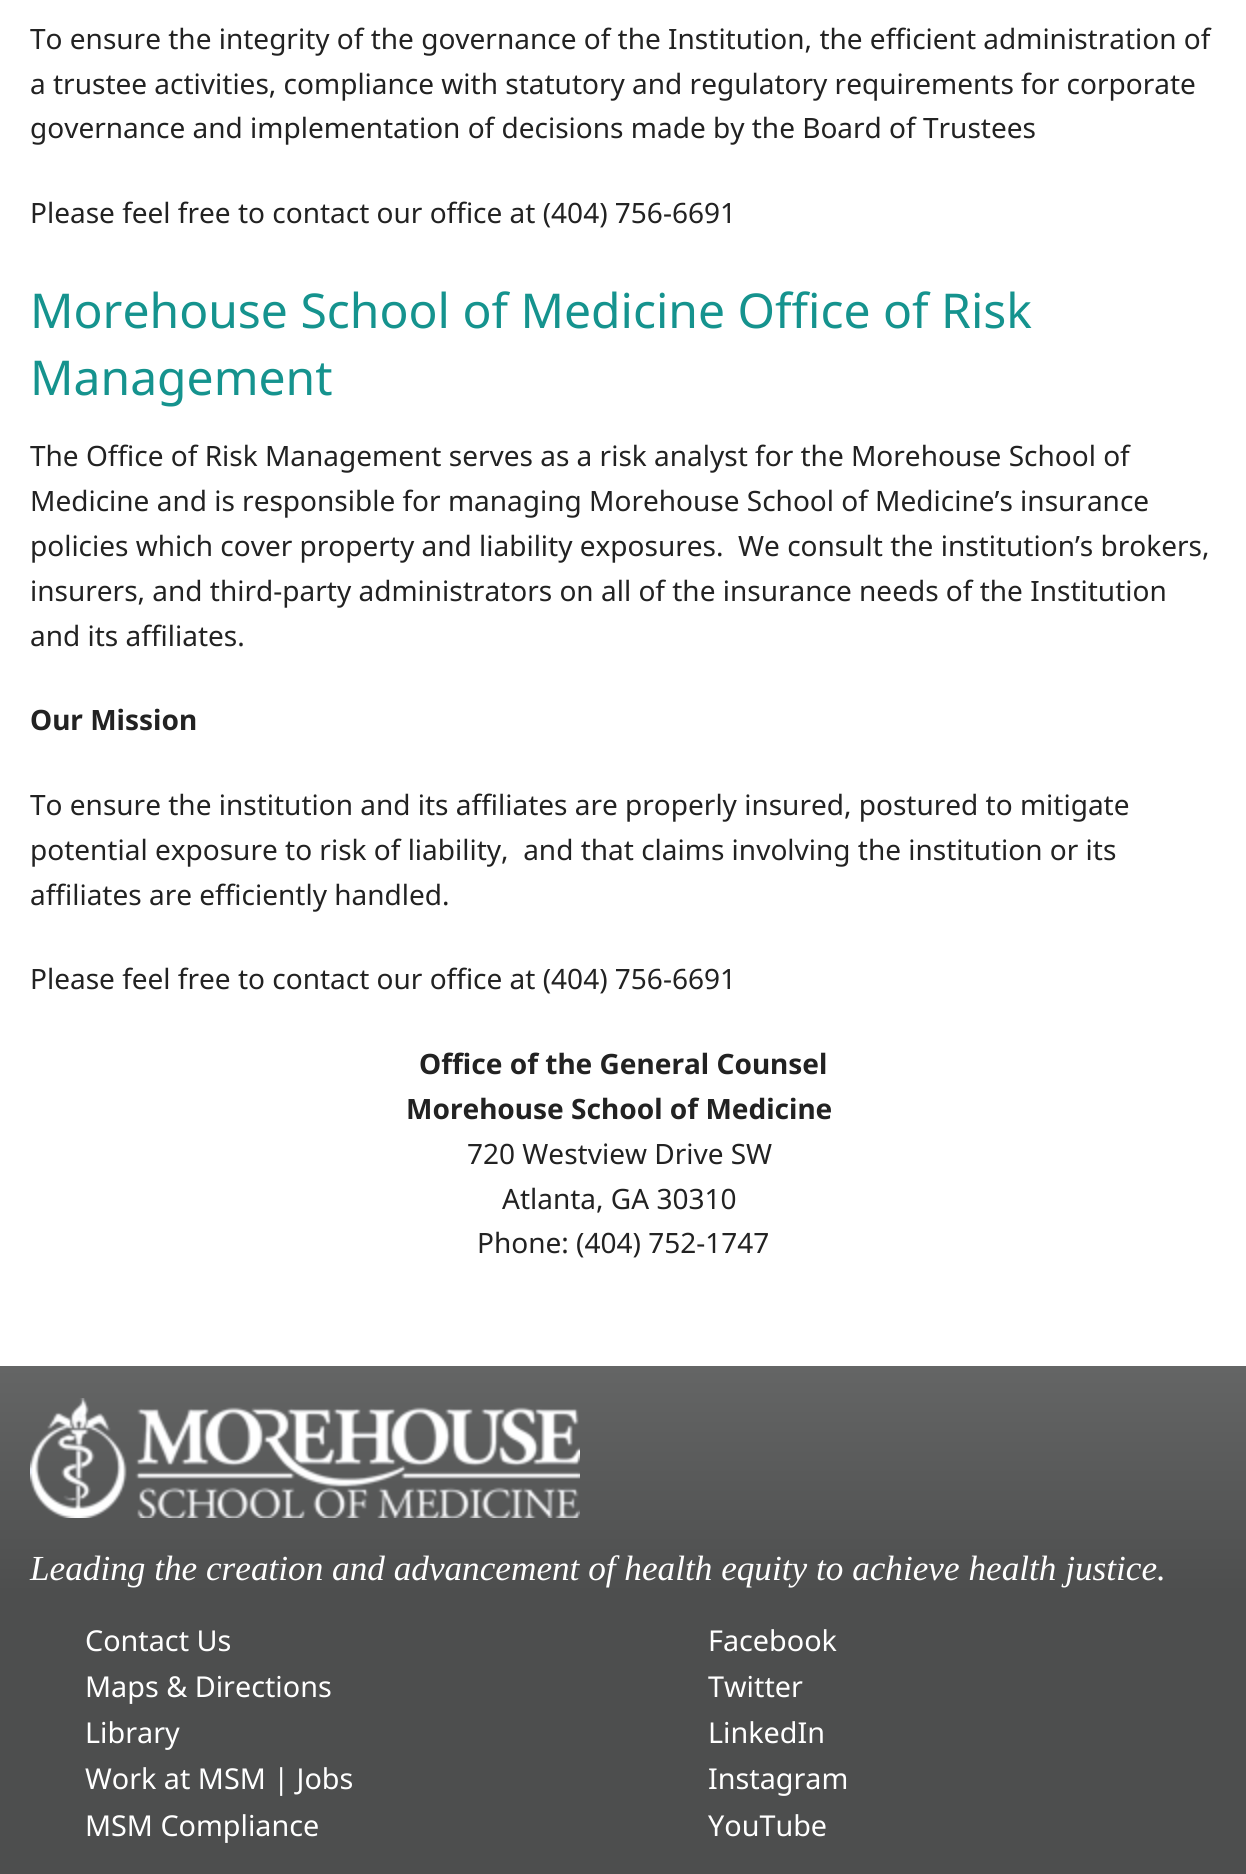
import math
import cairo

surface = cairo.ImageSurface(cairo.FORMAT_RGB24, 1246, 1874)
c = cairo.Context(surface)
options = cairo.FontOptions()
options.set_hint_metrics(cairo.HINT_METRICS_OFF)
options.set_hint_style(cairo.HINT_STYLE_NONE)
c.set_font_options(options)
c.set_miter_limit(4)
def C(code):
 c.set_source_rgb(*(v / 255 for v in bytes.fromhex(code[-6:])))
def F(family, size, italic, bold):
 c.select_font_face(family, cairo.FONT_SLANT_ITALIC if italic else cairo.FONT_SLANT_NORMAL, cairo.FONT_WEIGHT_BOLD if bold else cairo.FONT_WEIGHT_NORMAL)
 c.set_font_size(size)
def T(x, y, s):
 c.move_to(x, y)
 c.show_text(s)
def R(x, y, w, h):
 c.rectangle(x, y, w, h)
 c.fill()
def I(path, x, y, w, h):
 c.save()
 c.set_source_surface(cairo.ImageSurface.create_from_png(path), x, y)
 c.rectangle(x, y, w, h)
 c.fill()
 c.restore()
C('ffffff')
c.paint()
F('Noto Sans',28,0,0)
C('222222')
T(30,49,'To ensure the integrity of the governance of the Institution, the efficient administration of')
T(30,94,'a trustee activities, compliance with statutory and regulatory requirements for corporate')
T(30,138,'governance and implementation of decisions made by the Board of Trustees')
T(30,223,'Please feel free to contact our office at (404) 756-6691')
F('Noto Sans',48,0,0)
C('15938e')
T(30,328,'Morehouse School of Medicine Office of Risk')
T(30,395,'Management')
F('Noto Sans',28,0,0)
C('222222')
T(30,466,'The Office of Risk Management serves as a risk analyst for the Morehouse School of')
T(30,511,'Medicine and is responsible for managing Morehouse School of Medicine’s insurance')
T(30,556,'policies which cover property and liability exposures.  We consult the institution’s brokers,')
T(30,601,'insurers, and third-party administrators on all of the insurance needs of the Institution')
T(30,646,'and its affiliates.')
F('Noto Sans',28,0,1)
T(30,730,'Our Mission')
F('Noto Sans',28,0,0)
T(30,815,'To ensure the institution and its affiliates are properly insured, postured to mitigate')
T(30,860,'potential exposure to risk of liability,  and that claims involving the institution or its')
T(30,905,'affiliates are efficiently handled.')
T(30,989,'Please feel free to contact our office at (404) 756-6691')
F('Noto Sans',28,0,1)
T(419,1074,'Office of the General Counsel')
T(406,1119,'Morehouse School of Medicine')
F('Noto Sans',28,0,0)
T(467,1164,'720 Westview Drive SW')
T(502,1209,'Atlanta, GA 30310')
T(477,1253,'Phone: (404) 752-1747')
gradient = cairo.LinearGradient(623,0,623,1874)
gradient.add_color_stop_rgba(0,0.616,0.616,0.616,1)
gradient.add_color_stop_rgba(.6,0.49,0.494,0.494,1)
gradient.add_color_stop_rgba(.85,0.302,0.306,0.306,1)
c.set_source(gradient)
R(0,1366,1246,508)
I('1.png',30,1398,550,120)
F('Liberation Serif',35.2,1,0)
C('ffffff')
T(30,1580,'Leading the creation and advancement of health equity to achieve health justice.')
F('Noto Sans',28.75,0,0)
T(85,1651,'Contact Us')
T(85,1697,'Maps & Directions')
T(85,1743,'Library')
T(85,1789,'Work at MSM | Jobs')
T(85,1836,'MSM Compliance')
T(708,1651,'Facebook')
T(708,1697,'Twitter')
T(708,1743,'LinkedIn')
T(708,1789,'Instagram')
T(708,1836,'YouTube')
surface.write_to_png('o.png')
